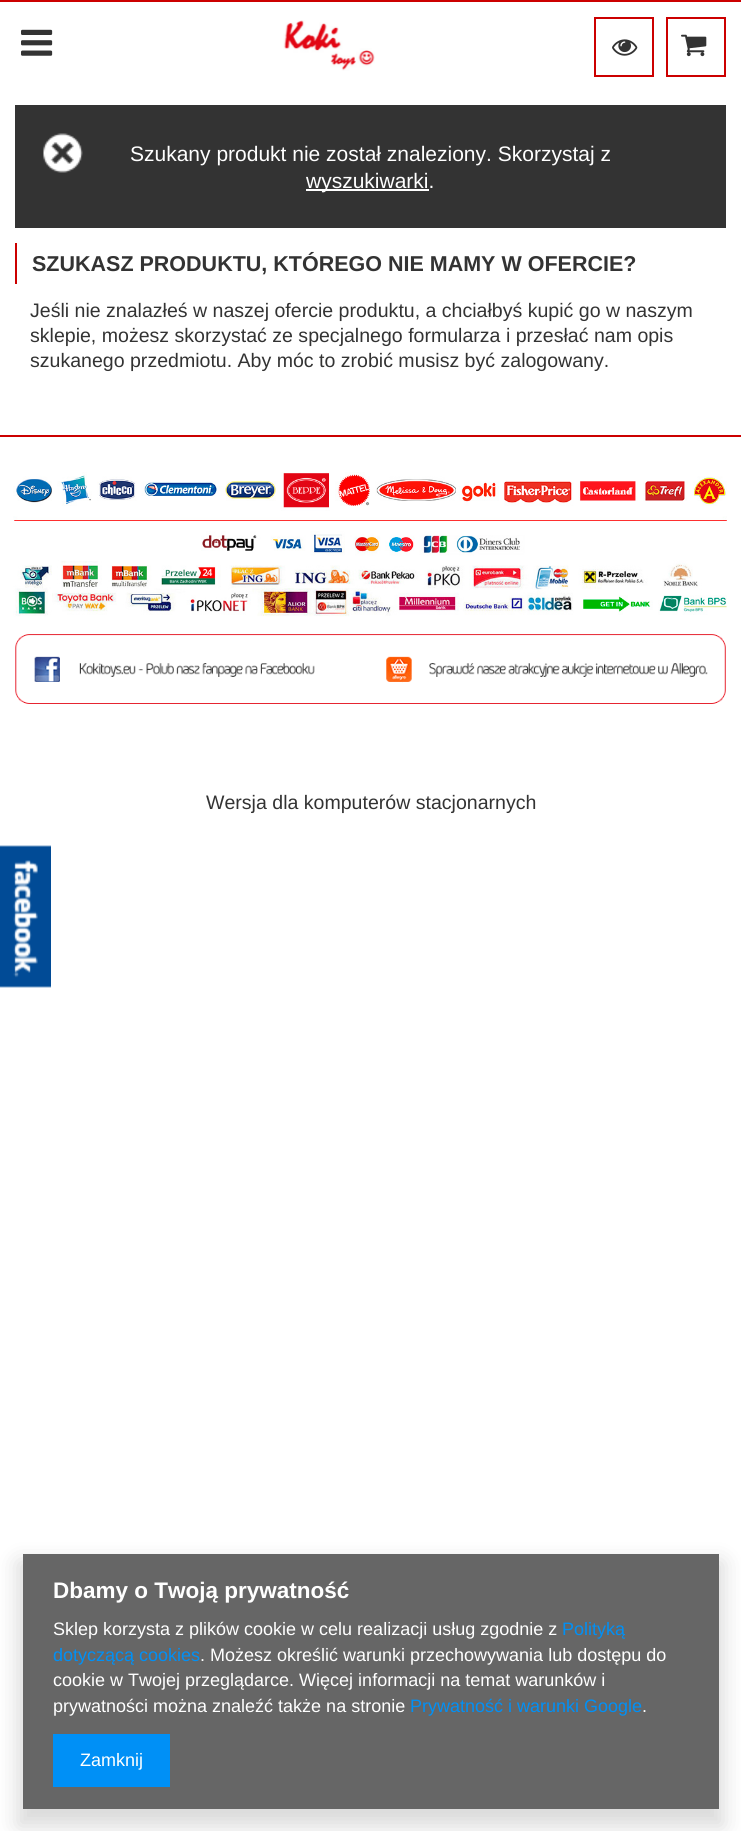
import math
import cairo

surface = cairo.ImageSurface(cairo.FORMAT_RGB24, 741, 1831)
c = cairo.Context(surface)
options = cairo.FontOptions()
options.set_hint_metrics(cairo.HINT_METRICS_OFF)
options.set_hint_style(cairo.HINT_STYLE_NONE)
c.set_font_options(options)
c.set_miter_limit(4)
def C(code):
 c.set_source_rgb(*(v / 255 for v in bytes.fromhex(code[-6:])))
def F(family, size, italic, bold):
 c.select_font_face(family, cairo.FONT_SLANT_ITALIC if italic else cairo.FONT_SLANT_NORMAL, cairo.FONT_WEIGHT_BOLD if bold else cairo.FONT_WEIGHT_NORMAL)
 c.set_font_size(size)
def T(x, y, s):
 c.move_to(x, y)
 c.show_text(s)
def R(x, y, w, h):
 c.rectangle(x, y, w, h)
 c.fill()
def Q(x, y, w, h, r):
 c.new_sub_path()
 for i, (u, v) in enumerate([(x + w - r, y + h - r), (x + r, y + h - r), (x + r, y + r), (x + w - r, y + r)]):
  c.arc(u, v, r, i * math.pi / 2, (i + 1) * math.pi / 2)
 c.close_path()
def S(x, y, w, h, r, blur, alpha):
 c.push_group_with_content(cairo.CONTENT_ALPHA)
 c.set_operator(cairo.OPERATOR_SOURCE)
 for i in range(15, -16, -2):
  e = blur * i / 6
  if min(w, h) + 2 * e > 0:
   c.set_source_rgba(0, 0, 0, alpha * math.erfc((i - 1) / 8.5) / 2)
   Q(x - e, y - e, w + 2 * e, h + 2 * e, max(0, min(r + e + blur * .6, min(w, h) / 2 + e)))
   c.fill()
 c.mask(c.pop_group())
def I(path, x, y, w, h):
 c.save()
 c.set_source_surface(cairo.ImageSurface.create_from_png(path), x, y)
 c.rectangle(x, y, w, h)
 c.fill()
 c.restore()
C('ffffff')
c.paint()
C('cc0000')
R(0,0,741,2)
I('1.png',21,29,32,27)
I('2.png',283,20,92,51)
c.rectangle(595,18,58,58)
c.stroke()
I('3.png',612,39,26,17)
c.rectangle(667,18,58,58)
c.stroke()
I('4.png',681,34,26,23)
C('333333')
R(15,105,711,123)
I('5.png',43,133,40,40)
F('Liberation Sans',21,0,0)
C('ffffff')
T(130,161,'Szukany produkt nie został znaleziony. Skorzystaj z')
R(306,189,123,2)
T(306,188,'wyszukiwarki.')
C('cc0000')
R(15,243,2,41)
F('Liberation Sans',21.5,0,1)
C('333333')
T(32,271,'SZUKASZ PRODUKTU, KTÓREGO NIE MAMY W OFERCIE?')
F('Liberation Sans',19.55,0,0)
T(30,317,'Jeśli nie znalazłeś w naszej ofercie produktu, a chciałbyś kupić go w naszym')
T(30,342,'sklepie, możesz skorzystać ze specjalnego formularza i przesłać nam opis')
T(30,367,'szukanego przedmiotu. Aby móc to zrobić musisz być zalogowany.')
C('cc0000')
R(0,435,741,2)
I('6.png',13,472,714,145)
I('7.png',15,634,711,70)
C('333333')
T(206,809,'Wersja dla komputerów stacjonarnych')
I('8.png',0,845,51,143)
c.save()
c.set_fill_rule(cairo.FILL_RULE_EVEN_ODD)
c.new_path()
c.move_to(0,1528)
c.line_to(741,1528)
c.line_to(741,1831)
c.line_to(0,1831)
c.close_path()
c.move_to(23,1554)
c.line_to(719,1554)
c.line_to(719,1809)
c.line_to(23,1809)
c.close_path()
c.clip()
C('000000')
S(18,1562,705,264,0,11,.15)
c.restore()
c.set_source_rgba(0,0,0,0.6)
R(23,1554,696,255)
F('Liberation Sans',22.5,0,1)
C('ffffff')
T(53,1598,'Dbamy o Twoją prywatność')
F('Liberation Sans',18,0,0)
T(53,1635,'Sklep korzysta z plików cookie w celu realizacji usług zgodnie z')
C('0090f6')
T(562,1635,'Polityką')
T(53,1661,'dotyczącą cookies')
C('ffffff')
T(200,1661,'. Możesz określić warunki przechowywania lub dostępu do')
T(53,1686,'cookie w Twojej przeglądarce. Więcej informacji na temat warunków i')
T(53,1712,'prywatności można znaleźć także na stronie')
C('0090f6')
T(410,1712,'Prywatność i warunki Google')
C('ffffff')
T(642,1712,'.')
C('0090f6')
R(53,1734,117,53)
C('ffffff')
T(80,1766,'Zamknij')
surface.write_to_png('o.png')
